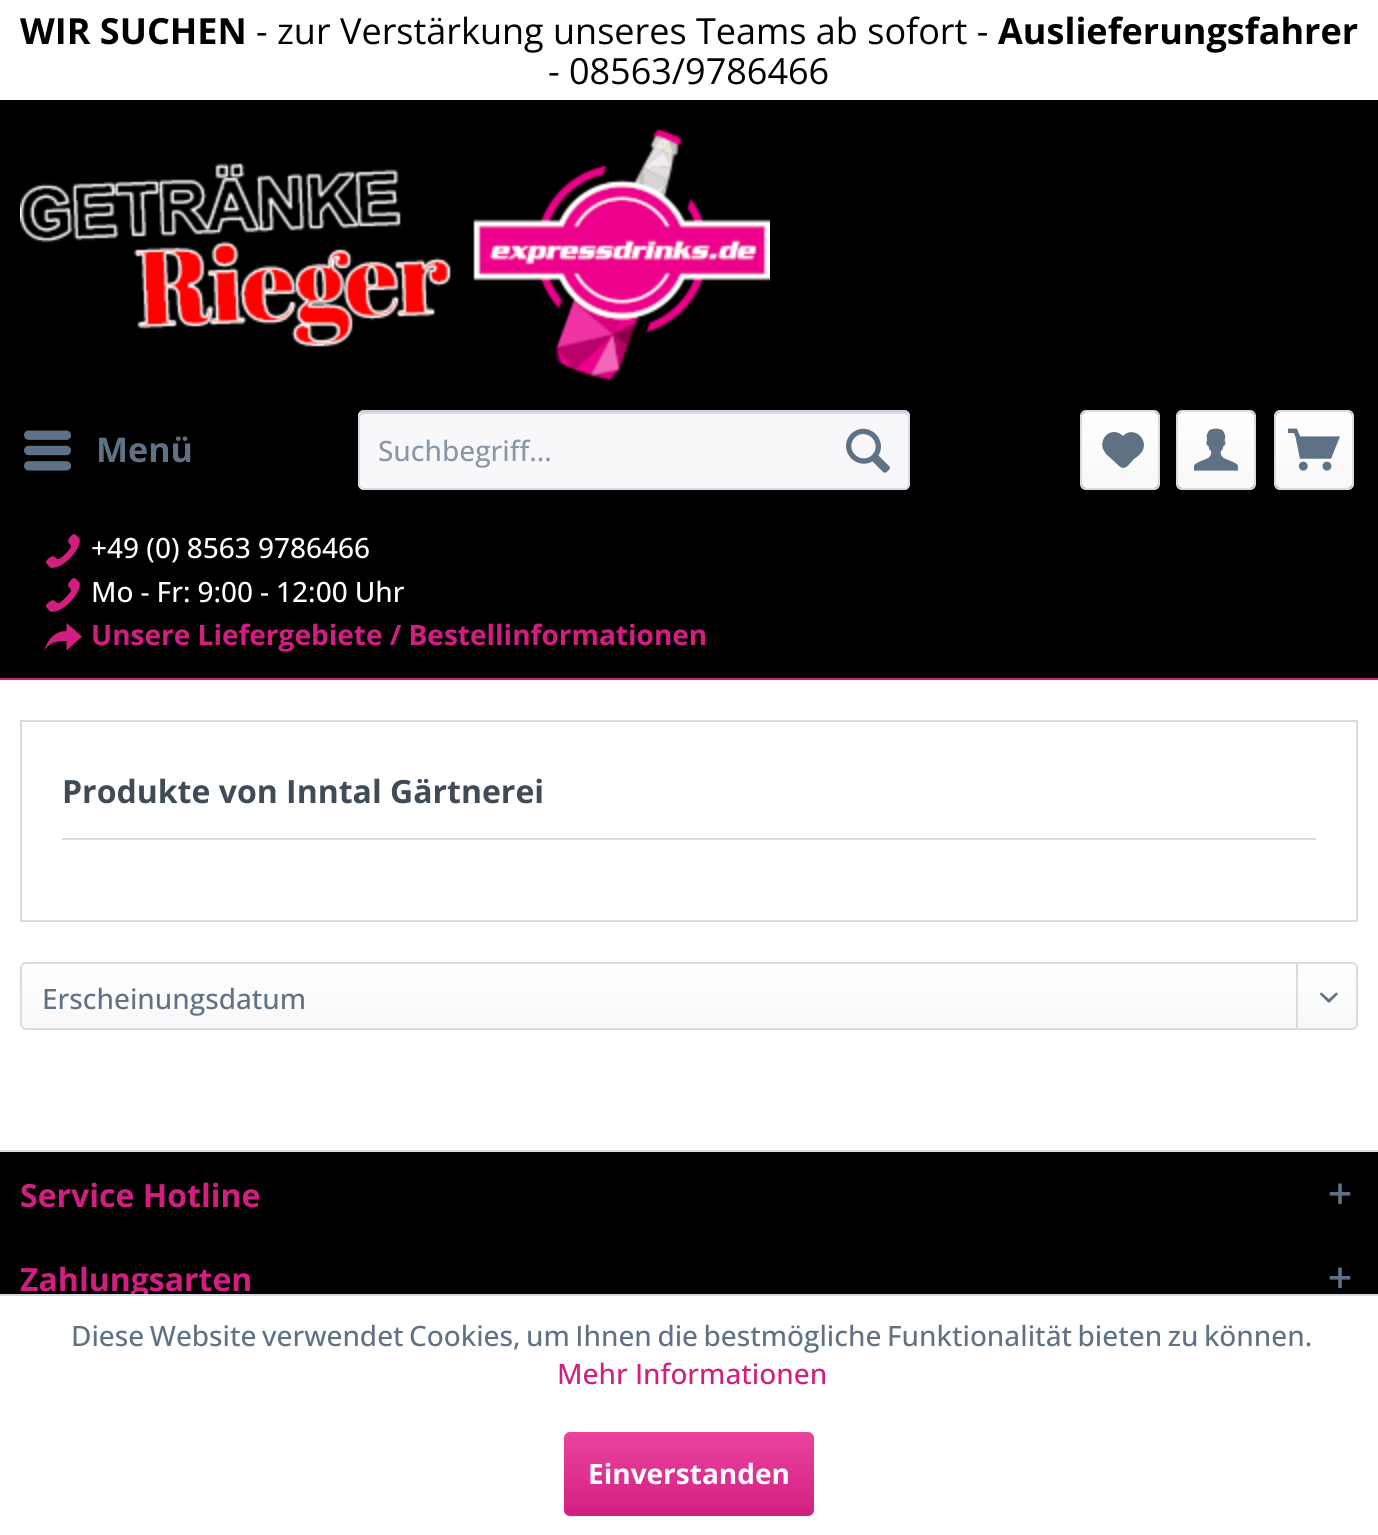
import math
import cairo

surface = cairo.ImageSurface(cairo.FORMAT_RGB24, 1378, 1535)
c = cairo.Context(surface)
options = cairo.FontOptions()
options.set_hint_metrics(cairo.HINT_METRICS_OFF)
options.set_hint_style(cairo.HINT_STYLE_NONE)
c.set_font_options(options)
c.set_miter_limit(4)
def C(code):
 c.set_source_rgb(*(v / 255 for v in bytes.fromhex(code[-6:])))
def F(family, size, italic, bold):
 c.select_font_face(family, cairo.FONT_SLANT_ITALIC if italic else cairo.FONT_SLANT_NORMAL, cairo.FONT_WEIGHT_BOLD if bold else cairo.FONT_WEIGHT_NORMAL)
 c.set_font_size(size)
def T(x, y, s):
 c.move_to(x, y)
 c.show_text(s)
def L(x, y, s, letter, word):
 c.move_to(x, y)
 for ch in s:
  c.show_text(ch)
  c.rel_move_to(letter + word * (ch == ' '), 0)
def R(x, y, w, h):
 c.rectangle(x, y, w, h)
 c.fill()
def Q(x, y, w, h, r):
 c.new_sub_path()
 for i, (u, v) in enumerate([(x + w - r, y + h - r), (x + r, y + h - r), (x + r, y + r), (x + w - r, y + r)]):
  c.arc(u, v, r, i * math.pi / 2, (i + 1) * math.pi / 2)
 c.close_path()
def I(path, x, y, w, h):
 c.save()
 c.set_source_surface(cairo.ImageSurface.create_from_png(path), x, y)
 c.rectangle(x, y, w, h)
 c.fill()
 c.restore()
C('000000')
c.paint()
C('ffffff')
R(0,0,1378,100)
F('Open Sans',36,0,1)
C('000000')
T(20,44,'WIR SUCHEN')
F('Open Sans',36,0,0)
T(256,44,'- zur Verstärkung unseres Teams ab sofort -')
F('Open Sans',36,0,1)
T(998,44,'Auslieferungsfahrer')
F('Open Sans',36,0,0)
T(548,84,'- 08563/9786466')
C('d31e81')
R(0,678,1378,2)
I('1.png',20,129,750,252)
I('2.png',24,430,47,41)
F('Open Sans',34,0,1)
C('5f7285')
T(96,462,'Menü')
C('f8f8fa')
Q(358,410,552,80,6)
c.fill()
C('dadae5')
c.new_path()
c.move_to(364,414)
c.line_to(904,414)
c.curve_to(906,414,908,416,908,418)
c.line_to(908,416)
c.curve_to(908,414,906,412,904,412)
c.line_to(364,412)
c.curve_to(362,412,360,414,360,416)
c.line_to(360,418)
c.curve_to(360,416,362,414,364,414)
c.close_path()
c.fill()
c.new_path()
c.move_to(360.5,412.5)
c.curve_to(361.5,411.5,362.5,411,364,411)
c.line_to(904,411)
c.curve_to(905.5,411,906.5,411.5,907.5,412.5)
C('cbcbdb')
c.stroke()
c.new_path()
c.move_to(907.5,412.5)
c.curve_to(908.5,413.5,909,414.5,909,416)
c.line_to(909,484)
c.curve_to(909,485.5,908.5,486.5,907.5,487.5)
c.curve_to(906.5,488.5,905.5,489,904,489)
c.line_to(364,489)
c.curve_to(362.5,489,361.5,488.5,360.5,487.5)
c.curve_to(359.5,486.5,359,485.5,359,484)
c.line_to(359,416)
c.curve_to(359,414.5,359.5,413.5,360.5,412.5)
C('dadae5')
c.stroke()
F('Open Sans Medium',28,0,0)
C('8798a9')
T(378,461,'Suchbegriff...')
I('3.png',846,428,44,45)
gradient = cairo.LinearGradient(1120,412,1120,488)
gradient.add_color_stop_rgba(0,1,1,1,1)
gradient.add_color_stop_rgba(1,0.973,0.973,0.98,1)
c.set_source(gradient)
Q(1082,412,76,76,4)
c.fill()
Q(1081,411,78,78,5)
C('dadae5')
c.stroke()
C('5f7285')
c.new_path()
c.move_to(1114,432)
c.curve_to(1106,432,1100,441,1103,449)
c.line_to(1106,454)
c.line_to(1118,465)
c.curve_to(1125,472,1128,465,1134,459)
c.curve_to(1137,457,1141,454,1143,450)
c.curve_to(1148,437,1132,426,1123,436)
c.curve_to(1121,434,1118,432,1114,432)
c.close_path()
c.fill()
gradient = cairo.LinearGradient(1216,412,1216,488)
gradient.add_color_stop_rgba(0,1,1,1,1)
gradient.add_color_stop_rgba(1,0.973,0.973,0.98,1)
c.set_source(gradient)
Q(1178,412,76,76,4)
c.fill()
Q(1177,411,78,78,5)
C('dadae5')
c.stroke()
I('4.png',1194,428,44,43)
gradient = cairo.LinearGradient(1314,412,1314,488)
gradient.add_color_stop_rgba(0,1,1,1,1)
gradient.add_color_stop_rgba(1,0.973,0.973,0.98,1)
c.set_source(gradient)
Q(1276,412,76,76,4)
c.fill()
Q(1275,411,78,78,5)
C('dadae5')
c.stroke()
I('5.png',1288,428,52,43)
I('6.png',46,534,34,34)
C('ffffff')
T(91,558,'+49 (0) 8563 9786466')
I('6.png',46,578,34,34)
L(91,602,'Mo - Fr: 9:00 - 12:00 Uhr',0,-.25)
F('Open Sans',28,0,1)
C('d31e81')
T(91,645,'Unsere Liefergebiete / Bestellinformationen')
c.new_path()
c.move_to(66.5,641)
c.line_to(66.5,650.5)
c.line_to(82,636.5)
c.line_to(66.5,623)
c.line_to(66.5,631)
c.curve_to(54,631,47,640.5,44,651.5)
c.curve_to(49,642,57,641,66.5,641)
c.close_path()
c.fill()
C('ffffff')
R(0,680,1378,470)
c.rectangle(21,721,1336,200)
C('dadae5')
c.stroke()
R(62,838,1254,2)
F('Open Sans',32,0,1)
C('3f4c58')
T(62,803,'Produkte von Inntal Gärtnerei')
gradient = cairo.LinearGradient(689,964,689,1028)
gradient.add_color_stop_rgba(0,1,1,1,1)
gradient.add_color_stop_rgba(1,0.973,0.973,0.98,1)
c.set_source(gradient)
Q(22,964,1334,64,4)
c.fill()
Q(21,963,1336,66,5)
C('dadae5')
c.stroke()
F('Open Sans Medium',28,0,0)
C('5f7285')
T(42,1009,'Erscheinungsdatum')
C('dadae5')
R(1296,964,2,66)
I('7.png',1320,992,18,11)
R(0,1150,1378,2)
F('Open Sans',32,0,1)
C('d31e81')
T(20,1207,'Service Hotline')
I('8.png',1329,1183,22,22)
T(20,1291,'Zahlungsarten')
I('8.png',1329,1267,22,22)
C('ffffff')
R(0,1296,1378,239)
C('dadae5')
R(0,1294,1378,2)
F('Open Sans Medium',28,0,0)
C('5f7285')
L(71,1346,'Diese Website verwendet Cookies, um Ihnen die bestmögliche Funktionalität bieten zu können.',0,-1.75)
C('d31e81')
T(557,1384,'Mehr Informationen')
gradient = cairo.LinearGradient(689,1432,689,1516)
gradient.add_color_stop_rgba(0,0.918,0.267,0.624,1)
gradient.add_color_stop_rgba(1,0.827,0.118,0.506,1)
c.set_source(gradient)
Q(564,1432,250,84,6)
c.fill()
F('Open Sans',28,0,1)
C('ffffff')
T(588,1484,'Einverstanden')
surface.write_to_png('o.png')
